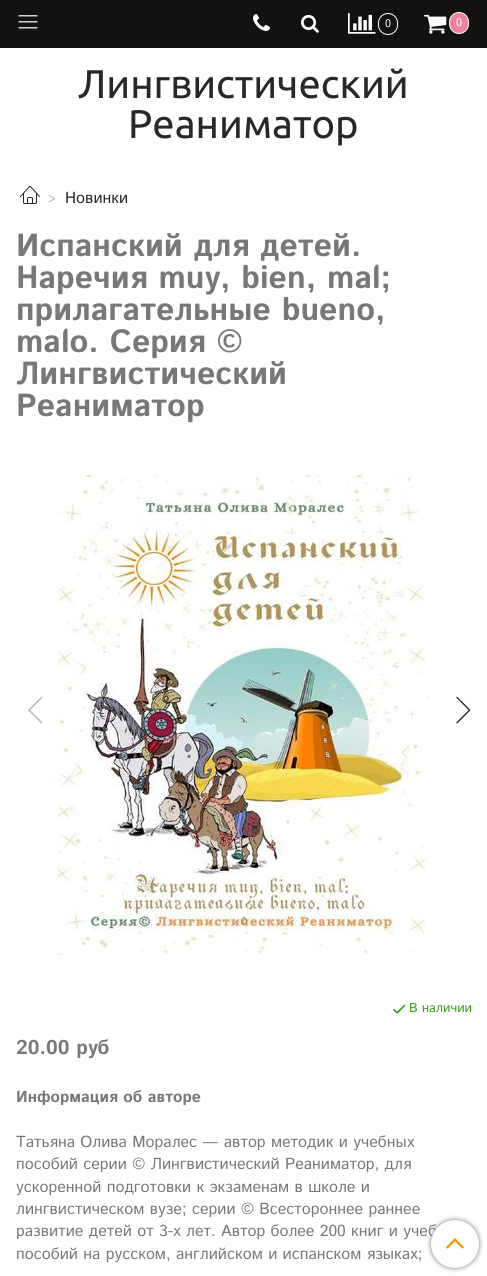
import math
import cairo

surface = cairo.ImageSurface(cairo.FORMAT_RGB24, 487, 1276)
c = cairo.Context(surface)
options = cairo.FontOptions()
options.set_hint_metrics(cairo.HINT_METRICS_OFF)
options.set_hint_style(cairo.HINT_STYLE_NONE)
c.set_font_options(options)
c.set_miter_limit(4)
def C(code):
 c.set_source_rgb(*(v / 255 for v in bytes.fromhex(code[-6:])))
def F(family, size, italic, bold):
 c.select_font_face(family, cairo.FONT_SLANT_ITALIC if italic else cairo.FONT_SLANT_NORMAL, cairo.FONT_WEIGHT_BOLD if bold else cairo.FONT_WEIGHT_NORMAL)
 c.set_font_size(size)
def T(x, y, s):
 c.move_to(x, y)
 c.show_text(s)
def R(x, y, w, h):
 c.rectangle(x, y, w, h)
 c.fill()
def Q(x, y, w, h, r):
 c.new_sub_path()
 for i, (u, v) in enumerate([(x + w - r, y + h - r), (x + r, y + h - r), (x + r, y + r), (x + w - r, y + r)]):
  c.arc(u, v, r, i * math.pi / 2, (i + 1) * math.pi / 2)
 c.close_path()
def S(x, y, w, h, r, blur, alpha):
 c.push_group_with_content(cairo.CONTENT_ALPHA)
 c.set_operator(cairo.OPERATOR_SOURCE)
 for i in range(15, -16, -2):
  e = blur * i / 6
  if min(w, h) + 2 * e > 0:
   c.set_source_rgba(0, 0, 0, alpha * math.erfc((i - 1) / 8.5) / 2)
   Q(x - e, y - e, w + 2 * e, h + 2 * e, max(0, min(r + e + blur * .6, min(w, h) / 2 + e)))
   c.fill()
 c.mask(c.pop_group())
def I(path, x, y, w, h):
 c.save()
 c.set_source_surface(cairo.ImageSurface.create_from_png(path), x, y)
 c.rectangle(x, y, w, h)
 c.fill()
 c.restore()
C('ffffff')
c.paint()
C('131211')
R(0,0,487,48)
I('1.png',18,15,20,14)
I('2.png',253,14,17,17)
I('3.png',301,14,18,19)
I('4.png',348,13,28,21)
Q(378.5,13.5,19,21,9.5)
C('ffffff')
c.set_line_width(1)
c.stroke()
F('Istok Web',11,0,0)
T(385,27,'0')
I('5.png',424,14,23,20)
C('eb839f')
Q(449.5,12.5,19,21,9.5)
c.fill_preserve()
C('ffffff')
c.stroke()
T(456,26,'0')
F('Ubuntu',40,0,0)
C('282828')
T(78,98,'Лингвистический')
T(128,138,'Реаниматор')
I('6.png',20,186,20,18)
F('Istok Web',12,0,0)
C('939393')
T(48,203,'>')
F('Istok Web',16,0,0)
C('282828')
T(65,203,'Новинки')
F('Istok Web',32,0,1)
C('787878')
T(16,256,'Испанский для детей.')
T(16,288,'Наречия muy, bien, mal;')
T(16,320,'прилагательные bueno,')
T(16,352,'malo. Серия ©')
T(16,384,'Лингвистический')
T(16,416,'Реаниматор')
I('7.png',58,475,371,480)
I('8.png',28,696,15,28)
I('9.png',456,696,15,28)
I('10.png',393,1004,13,10)
F('Istok Web',13,0,0)
C('3c981d')
T(409,1012,'В наличии')
F('Istok Web',20,0,1)
C('787878')
T(16,1054,'20.00 руб')
F('Istok Web',16,0,1)
T(16,1102,'Информация об авторе')
F('Istok Web',16,0,0)
T(16,1147,'Татьяна Олива Моралес — автор методик и учебных')
T(16,1169,'пособий серии © Лингвистический Реаниматор, для')
T(16,1192,'ускоренной подготовки к экзаменам в школе и')
T(16,1214,'лингвистическом вузе; серии © Всестороннее раннее')
T(16,1236,'развитие детей от 3-х лет. Автор более 200 книг и учеб')
T(16,1259,'пособий на русском, английском и испанском языках;')
C('777777')
S(431,1220,48,48,24,2.5,1)
C('ffffff')
c.arc(455,1244,24,0,2 * math.pi)
c.fill()
I('11.png',446,1238,18,11)
surface.write_to_png('o.png')
